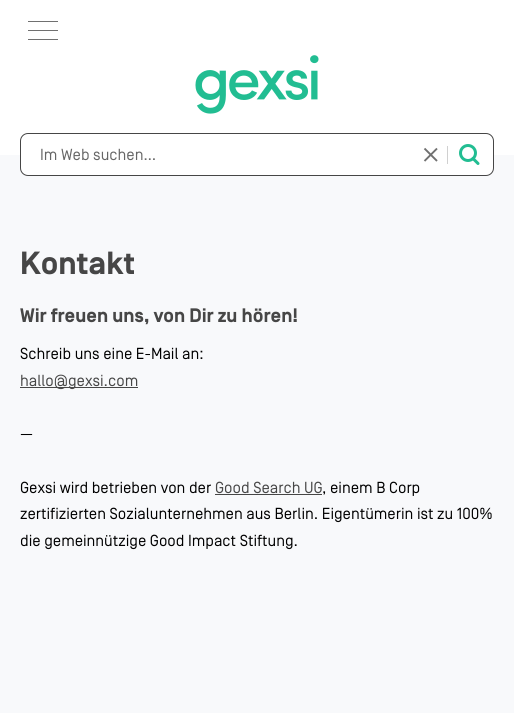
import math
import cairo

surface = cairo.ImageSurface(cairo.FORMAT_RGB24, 514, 713)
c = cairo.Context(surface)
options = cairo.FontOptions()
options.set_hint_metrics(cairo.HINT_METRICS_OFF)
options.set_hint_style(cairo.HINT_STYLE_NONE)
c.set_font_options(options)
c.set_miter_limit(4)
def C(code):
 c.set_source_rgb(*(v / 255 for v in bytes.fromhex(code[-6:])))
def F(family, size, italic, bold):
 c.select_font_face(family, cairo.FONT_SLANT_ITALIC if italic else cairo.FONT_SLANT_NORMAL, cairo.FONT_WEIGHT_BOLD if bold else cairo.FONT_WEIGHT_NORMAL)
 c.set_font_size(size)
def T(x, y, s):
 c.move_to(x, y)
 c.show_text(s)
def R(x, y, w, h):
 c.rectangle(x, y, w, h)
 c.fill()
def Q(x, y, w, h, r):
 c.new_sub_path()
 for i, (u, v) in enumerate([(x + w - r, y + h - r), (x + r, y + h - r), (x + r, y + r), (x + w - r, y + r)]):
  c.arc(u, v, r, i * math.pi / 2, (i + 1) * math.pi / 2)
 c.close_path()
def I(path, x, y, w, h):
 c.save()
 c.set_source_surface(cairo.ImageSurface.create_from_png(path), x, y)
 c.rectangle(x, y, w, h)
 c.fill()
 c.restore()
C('ffffff')
c.paint()
C('707070')
R(28,21,30,1)
R(28,30,30,1)
R(28,39,30,1)
C('f8f9fb')
R(0,155,514,558)
I('1.png',195,55,124,59)
C('ffffff')
Q(20.5,133.5,473,42,7.5)
c.fill_preserve()
C('464646')
c.set_line_width(1)
c.stroke()
F('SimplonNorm',16,0,0)
C('666666')
T(40,160,'Im Web suchen…')
c.new_path()
c.move_to(424.5,148.5)
c.line_to(437,161)
c.move_to(424.5,161)
c.line_to(437,148.5)
C('707070')
c.set_line_width(1.9)
c.stroke()
C('d0d0d0')
R(447,146,1,18)
c.arc(468,153,7.5,0,2 * math.pi)
C('22bd92')
c.set_line_width(3)
c.stroke()
c.new_path()
c.move_to(478,163.5)
c.line_to(473,158.5)
c.set_line_cap(cairo.LINE_CAP_ROUND)
c.stroke()
F('SimplonNorm',32,0,1)
C('464646')
T(20,274,'Kontakt')
F('SimplonNorm',19.5,0,1)
T(20,322,'Wir freuen uns, von Dir zu hören!')
F('SimplonNorm',16,0,0)
C('000000')
T(20,359,'Schreib uns eine E-Mail an:')
C('464646')
R(20,387,118,1)
T(20,386,'hallo@gexsi.com')
C('000000')
T(20,439,'—')
T(20,493,'Gexsi wird betrieben von der')
C('464646')
T(215,493,'Good Search UG')
R(215,494,107,1)
C('000000')
T(322,493,', einem B Corp')
T(20,519,'zertifizierten Sozialunternehmen aus Berlin. Eigentümerin ist zu 100%')
T(20,546,'die gemeinnützige Good Impact Stiftung.')
surface.write_to_png('o.png')
